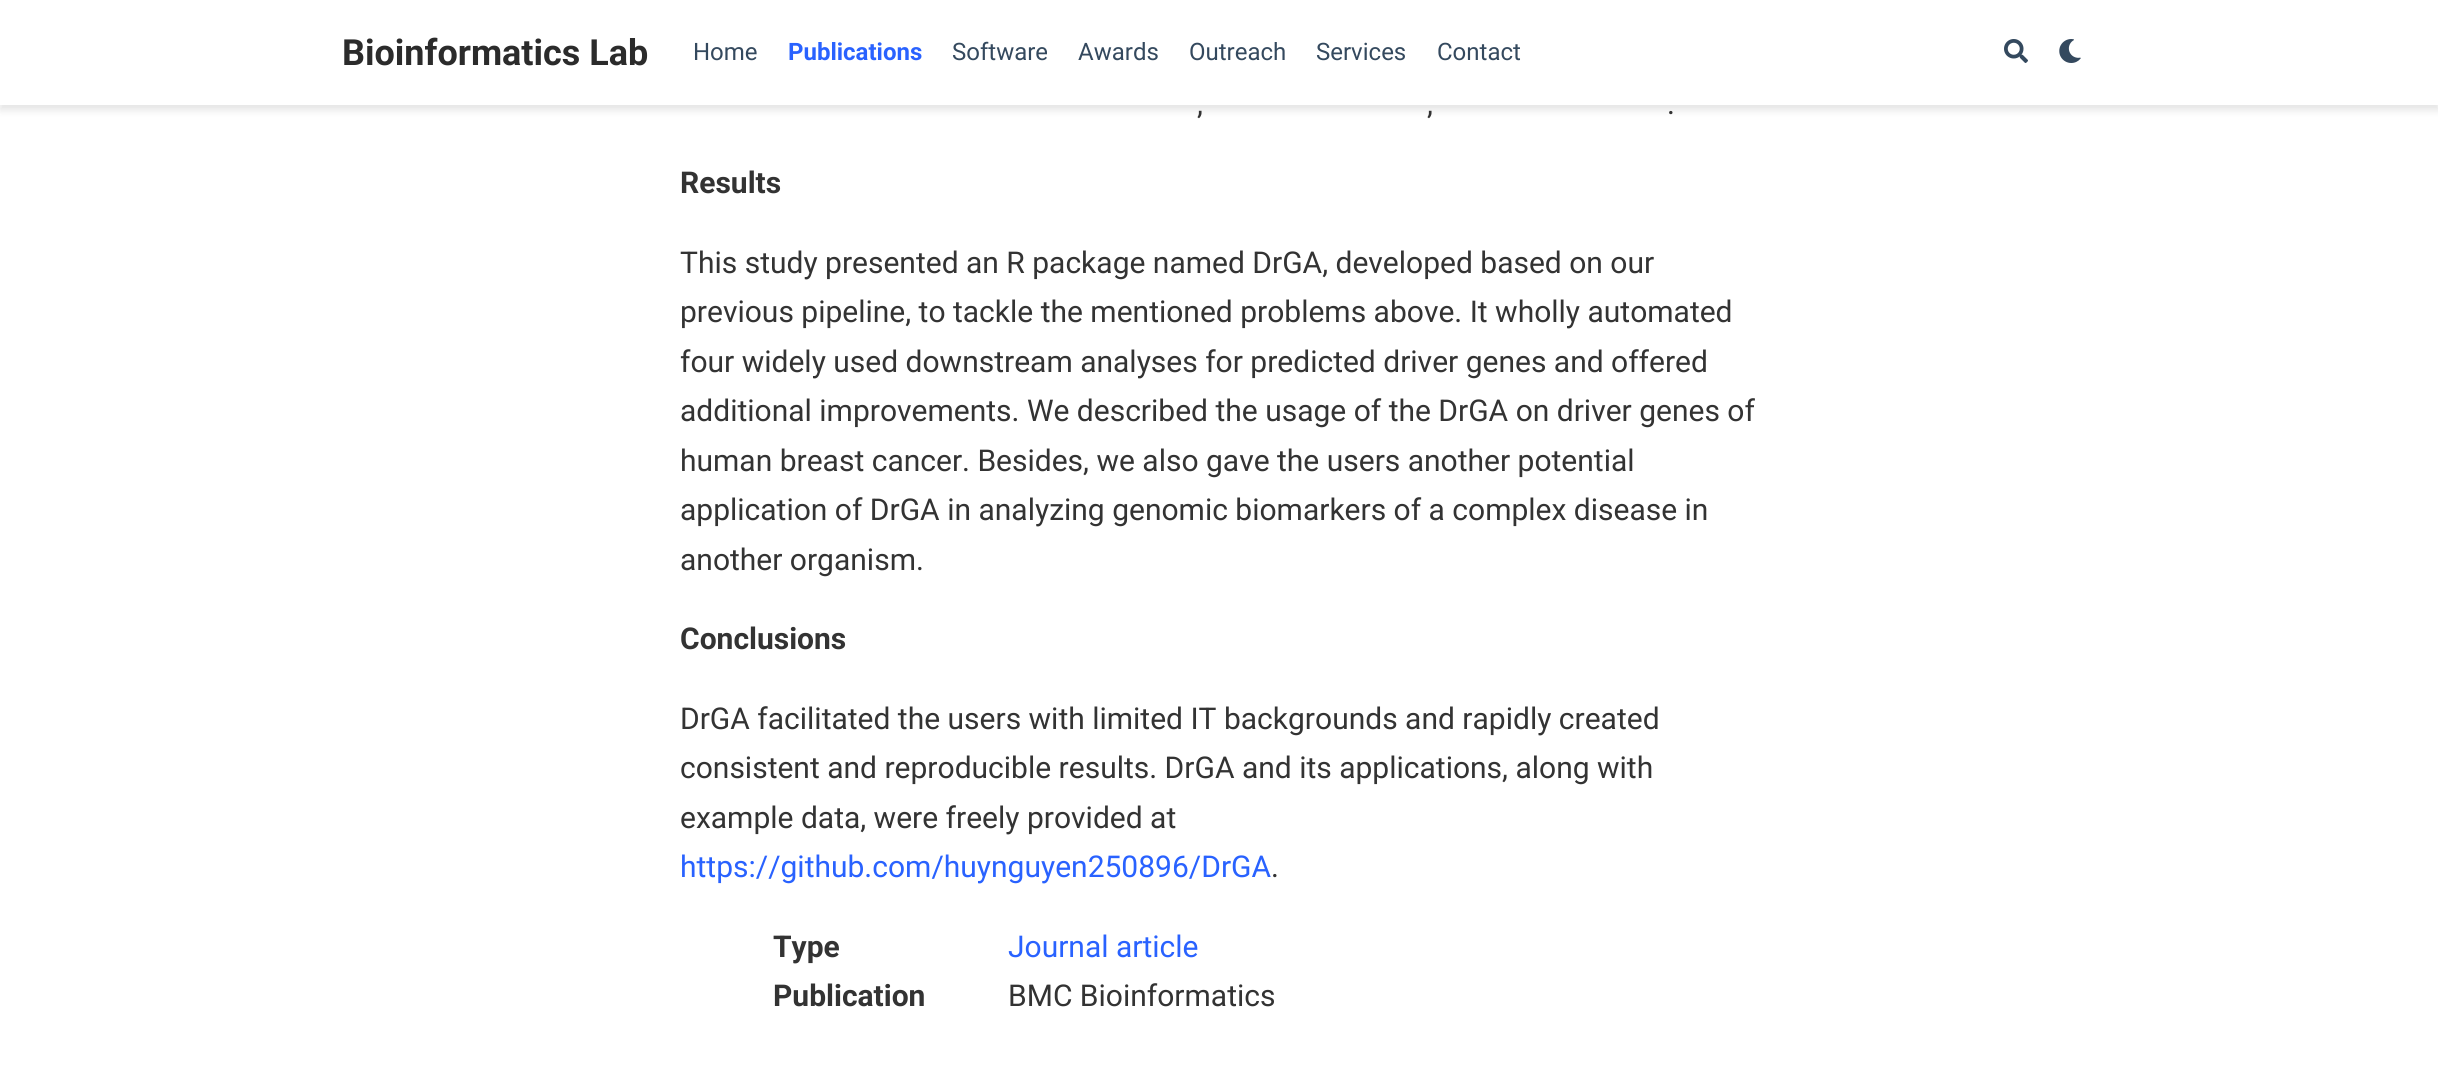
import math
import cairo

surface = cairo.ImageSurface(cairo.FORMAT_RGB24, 2438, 1080)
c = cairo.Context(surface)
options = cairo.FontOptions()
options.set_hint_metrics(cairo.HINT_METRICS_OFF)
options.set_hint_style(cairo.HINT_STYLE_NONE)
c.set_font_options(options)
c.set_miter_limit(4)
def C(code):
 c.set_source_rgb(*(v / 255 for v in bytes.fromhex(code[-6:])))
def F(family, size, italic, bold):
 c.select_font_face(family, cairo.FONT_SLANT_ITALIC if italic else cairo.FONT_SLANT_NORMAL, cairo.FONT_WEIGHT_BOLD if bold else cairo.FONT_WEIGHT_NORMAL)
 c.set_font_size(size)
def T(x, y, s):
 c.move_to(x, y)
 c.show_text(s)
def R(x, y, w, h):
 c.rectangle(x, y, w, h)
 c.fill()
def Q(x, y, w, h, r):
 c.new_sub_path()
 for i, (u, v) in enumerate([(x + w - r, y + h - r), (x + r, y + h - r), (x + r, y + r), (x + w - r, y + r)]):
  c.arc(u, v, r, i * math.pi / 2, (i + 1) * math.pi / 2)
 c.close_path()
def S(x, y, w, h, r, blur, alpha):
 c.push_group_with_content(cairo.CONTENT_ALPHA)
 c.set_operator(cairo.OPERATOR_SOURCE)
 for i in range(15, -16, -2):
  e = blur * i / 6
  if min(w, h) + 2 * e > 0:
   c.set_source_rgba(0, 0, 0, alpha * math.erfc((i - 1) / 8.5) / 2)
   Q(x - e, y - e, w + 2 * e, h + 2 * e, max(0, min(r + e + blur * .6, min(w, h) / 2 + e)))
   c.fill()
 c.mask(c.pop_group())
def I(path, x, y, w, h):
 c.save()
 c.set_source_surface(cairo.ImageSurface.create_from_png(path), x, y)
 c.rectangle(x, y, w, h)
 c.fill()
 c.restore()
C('ffffff')
c.paint()
C('000000')
S(0,5,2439,105,0,4,.11)
C('ffffff')
R(0,0,2438,105)
F('Roboto',36,0,1)
C('2b2b2b')
T(342,65,'Bioinformatics Lab')
F('Roboto',24,0,0)
C('34495e')
T(693,60,'Home')
F('Roboto',24,0,1)
C('2962ff')
T(788,60,'Publications')
F('Roboto',24,0,0)
C('34495e')
T(952,60,'Software')
T(1078,60,'Awards')
T(1189,60,'Outreach')
T(1316,60,'Services')
T(1437,60,'Contact')
I('1.png',2004,39,24,24)
I('2.png',2059,39,22,24)
F('Roboto',30,0,0)
C('333333')
T(1197,114,',')
T(1427,114,',')
T(1667,114,'.')
F('Roboto',30,0,1)
T(680,193,'Results')
F('Roboto',30,0,0)
T(680,273,'This study presented an R package named DrGA, developed based on our')
T(680,322,'previous pipeline, to tackle the mentioned problems above. It wholly automated')
T(680,372,'four widely used downstream analyses for predicted driver genes and offered')
T(680,421,'additional improvements. We described the usage of the DrGA on driver genes of')
T(680,471,'human breast cancer. Besides, we also gave the users another potential')
T(680,520,'application of DrGA in analyzing genomic biomarkers of a complex disease in')
T(680,570,'another organism.')
F('Roboto',30,0,1)
T(680,649,'Conclusions')
F('Roboto',30,0,0)
T(680,729,'DrGA facilitated the users with limited IT backgrounds and rapidly created')
T(680,778,'consistent and reproducible results. DrGA and its applications, along with')
T(680,828,'example data, were freely provided at')
C('2962ff')
T(680,877,'https://github.com/huynguyen250896/DrGA')
C('333333')
T(1271,877,'.')
F('Roboto',30,0,1)
T(773,957,'Type')
F('Roboto',30,0,0)
C('2962ff')
T(1008,957,'Journal article')
F('Roboto',30,0,1)
C('333333')
T(773,1006,'Publication')
F('Roboto',30,0,0)
T(1008,1006,'BMC Bioinformatics')
surface.write_to_png('o.png')
